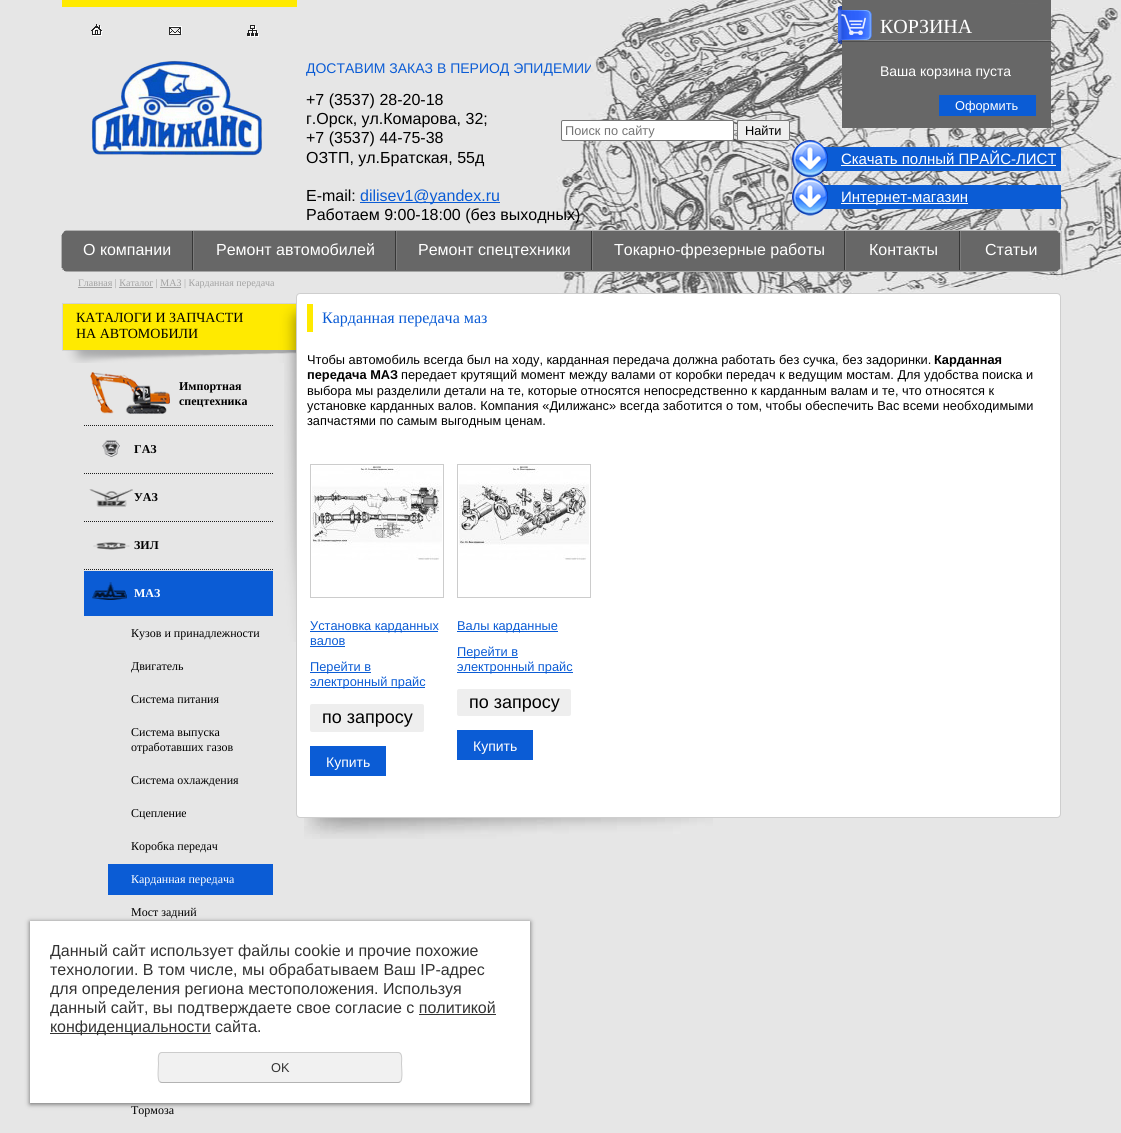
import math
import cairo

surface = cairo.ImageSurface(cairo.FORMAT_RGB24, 1121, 1133)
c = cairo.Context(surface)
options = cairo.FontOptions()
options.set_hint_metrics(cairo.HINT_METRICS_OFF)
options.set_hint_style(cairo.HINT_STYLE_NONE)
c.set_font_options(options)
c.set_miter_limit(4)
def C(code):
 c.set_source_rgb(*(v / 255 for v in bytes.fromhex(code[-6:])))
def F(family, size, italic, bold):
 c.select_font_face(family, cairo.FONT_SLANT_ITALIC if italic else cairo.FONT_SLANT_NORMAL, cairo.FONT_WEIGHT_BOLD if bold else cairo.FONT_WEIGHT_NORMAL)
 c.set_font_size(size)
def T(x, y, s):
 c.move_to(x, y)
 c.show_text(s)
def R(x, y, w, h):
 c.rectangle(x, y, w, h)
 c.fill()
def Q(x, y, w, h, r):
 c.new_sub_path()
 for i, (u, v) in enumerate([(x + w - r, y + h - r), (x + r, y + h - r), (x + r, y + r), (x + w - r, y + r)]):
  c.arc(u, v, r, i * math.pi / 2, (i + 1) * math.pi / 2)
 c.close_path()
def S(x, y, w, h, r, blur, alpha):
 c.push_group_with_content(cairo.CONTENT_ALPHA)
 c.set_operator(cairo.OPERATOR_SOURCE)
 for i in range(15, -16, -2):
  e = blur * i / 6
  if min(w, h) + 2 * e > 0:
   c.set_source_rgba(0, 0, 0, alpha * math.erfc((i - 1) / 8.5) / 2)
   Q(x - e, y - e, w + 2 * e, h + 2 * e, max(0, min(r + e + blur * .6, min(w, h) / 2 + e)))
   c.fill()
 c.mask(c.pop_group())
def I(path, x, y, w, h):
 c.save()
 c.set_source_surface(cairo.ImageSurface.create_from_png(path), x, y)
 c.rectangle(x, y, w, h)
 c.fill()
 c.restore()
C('e6e6e6')
c.paint()
I('1.png',556,0,565,360)
C('ffea00')
R(62,0,235,7)
I('2.png',91,24,12,12)
I('3.png',169,26,13,9)
I('4.png',247,25,12,12)
I('5.png',838,0,213,128)
F('Liberation Serif',20,0,0)
C('ffffff')
T(880,33,'КОРЗИНА')
F('Liberation Sans',14,0,0)
T(880,76,'Ваша корзина пуста')
C('0b5cd5')
R(939,95,97,21)
F('Liberation Sans',12.8,0,0)
C('ffffff')
T(955,110,'Оформить')
I('6.png',91,60,171,96)
c.save()
c.rectangle(306,60,285,17)
c.clip()
F('Liberation Sans',14,0,0)
C('0b5cd5')
T(306,73,'ДОСТАВИМ ЗАКАЗ В ПЕРИОД ЭПИДЕМИИ')
c.restore()
F('Liberation Sans',16,0,0)
C('000000')
T(306,105,'+7 (3537) 28-20-18')
T(306,124,'г.Орск, ул.Комарова, 32;')
T(306,143,'+7 (3537) 44-75-38')
T(306,163,'ОЗТП, ул.Братская, 55д')
T(306,201,'E-mail:')
C('0b5cd5')
R(360,202,140,1)
T(360,201,'dilisev1@yandex.ru')
C('000000')
T(306,220,'Работаем 9:00-18:00 (без выходных)')
C('ffffff')
Q(561.5,120.5,172,20,1.5)
c.fill_preserve()
C('767676')
c.set_line_width(1)
c.stroke()
F('Liberation Sans',12.8,0,0)
C('757575')
T(565,135,'Поиск по сайту')
C('efefef')
Q(737.5,120.5,52,20,1.5)
c.fill_preserve()
C('767676')
c.stroke()
C('000000')
T(745,135,'Найти')
I('7.png',792,140,269,38)
F('Liberation Sans',15,0,0)
C('ffffff')
T(841,164,'Cкачать полный ПРАЙС-ЛИСТ')
R(841,165,215,1)
I('8.png',792,178,269,38)
R(841,203,127,1)
T(841,202,'Интернет-магазин')
I('9.png',61,230,1000,42)
I('10.png',192,231,2,39)
F('Liberation Sans',16,0,0)
T(83,255,'О компании')
I('10.png',395,231,2,39)
T(216,255,'Ремонт автомобилей')
I('10.png',591,231,2,39)
T(418,255,'Ремонт спецтехники')
I('10.png',844,231,2,39)
T(614,255,'Токарно-фрезерные работы')
I('10.png',959,231,2,39)
T(869,255,'Контакты')
T(985,255,'Статьи')
C('a2a2a2')
R(78,287,34,1)
F('Liberation Serif',10,0,0)
T(78,286,'Главная | Каталог | МАЗ | Карданная передача')
R(119,287,34,1)
R(160,287,21,1)
I('11.png',284,363,12,279)
I('12.png',62,303,234,60)
F('Liberation Serif',14,0,0)
C('000000')
T(76,322,'КАТАЛОГИ И ЗАПЧАСТИ')
T(76,338,'НА АВТОМОБИЛИ')
c.new_path()
c.move_to(84,425.5)
c.line_to(273,425.5)
C('1d1d1d')
c.set_dash([1,1])
c.stroke()
I('13.png',90,372,80,42)
F('Liberation Serif',12,0,1)
C('000000')
T(179,390,'Импортная')
T(179,405,'спецтехника')
c.new_path()
c.move_to(84,473.5)
c.line_to(273,473.5)
C('1d1d1d')
c.stroke()
I('14.png',102,440,18,17)
C('000000')
T(134,453,'ГАЗ')
c.new_path()
c.move_to(84,521.5)
c.line_to(273,521.5)
C('1d1d1d')
c.stroke()
I('15.png',89,489,44,18)
C('000000')
T(134,501,'УАЗ')
c.new_path()
c.move_to(84,569.5)
c.line_to(273,569.5)
C('1d1d1d')
c.stroke()
I('16.png',93,542,37,8)
C('000000')
T(134,549,'ЗИЛ')
C('0b5cd5')
R(84,571,189,45)
I('17.png',92,582,35,18)
C('ffffff')
T(134,597,'МАЗ')
F('Liberation Serif',12,0,0)
C('000000')
T(131,637,'Кузов и принадлежности')
T(131,670,'Двигатель')
T(131,703,'Система питания')
T(131,736,'Система выпуска')
T(131,751,'отработавших газов')
T(131,784,'Система охлаждения')
T(131,817,'Сцепление')
T(131,850,'Коробка передач')
C('0b5cd5')
R(108,864,165,31)
C('ffffff')
T(131,883,'Карданная передача')
C('000000')
T(131,916,'Мост задний')
T(131,1114,'Тормоза')
I('18.png',304,818,409,21)
C('ffffff')
Q(296.5,293.5,764,524,3.5)
c.fill_preserve()
C('cecece')
c.set_dash([])
c.stroke()
C('ffea00')
R(307,304,6,28)
F('Liberation Serif',16,0,0)
C('0b5cd5')
T(322,323,'Карданная передача маз')
F('Liberation Sans',12.8,0,0)
C('000000')
T(307,364,'Чтобы автомобиль всегда был на ходу, карданная передача должна работать без сучка, без задоринки.')
F('Liberation Sans',12.8,0,1)
T(934,364,'Карданная')
T(307,379,'передача МАЗ')
F('Liberation Sans',12.8,0,0)
T(401,379,'передает крутящий момент между валами от коробки передач к ведущим мостам. Для удобства поиска и')
T(307,395,'выбора мы разделили детали на те, которые относятся непосредственно к карданным валам и те, что относятся к')
T(307,410,'установке карданных валов. Компания «Дилижанс» всегда заботится о том, чтобы обеспечить Вас всеми необходимыми')
T(307,425,'запчастями по самым выгодным ценам.')
c.rectangle(310.5,464.5,133,133)
C('cccccc')
c.stroke()
I('19.png',312,466,130,94)
C('0b5cd5')
R(310,631,128,1)
T(310,630,'Установка карданных')
T(310,645,'валов')
R(310,646,35,1)
R(310,672,61,1)
T(310,671,'Перейти в')
R(310,687,115,1)
T(310,686,'электронный прайс')
C('eeeeee')
Q(310,704,114,28,2)
c.fill()
F('Liberation Sans',18,0,0)
C('000000')
T(322,723,'по запросу')
C('0b5cd5')
R(310,746,76,30)
F('Liberation Sans',14,0,0)
C('ffffff')
T(326,767,'Купить')
c.rectangle(457.5,464.5,133,133)
C('cccccc')
c.stroke()
I('20.png',459,466,130,94)
C('0b5cd5')
R(457,631,101,1)
F('Liberation Sans',12.8,0,0)
T(457,630,'Валы карданные')
R(457,657,61,1)
T(457,656,'Перейти в')
R(457,672,116,1)
T(457,671,'электронный прайс')
C('eeeeee')
Q(457,689,114,27,2)
c.fill()
F('Liberation Sans',18,0,0)
C('000000')
T(469,708,'по запросу')
C('0b5cd5')
R(457,730,76,30)
F('Liberation Sans',14,0,0)
C('ffffff')
T(473,751,'Купить')
C('666666')
S(30,922,500,182,0,2.5,1)
C('ffffff')
R(30,921,500,182)
F('Liberation Sans',16,0,0)
C('333333')
T(50,956,'Данный сайт использует файлы cookie и прочие похожие')
T(50,975,'технологии. В том числе, мы обрабатываем Ваш IP-адрес')
T(50,994,'для определения региона местоположения. Используя')
T(50,1013,'данный сайт, вы подтверждаете свое согласие с политикой')
R(50,1033,161,1)
T(50,1032,'конфиденциальности сайта.')
R(419,1014,77,1)
C('f1f1f1')
Q(158,1052,244,31,4)
c.fill()
c.new_path()
c.move_to(400.5,1081.5)
c.curve_to(400,1082,399,1082.5,398,1082.5)
c.line_to(162,1082.5)
c.curve_to(161,1082.5,160,1082,159.5,1081.5)
C('b3b3b3')
c.stroke()
c.new_path()
c.move_to(159.5,1081.5)
c.curve_to(157,1079,158.5,1067,158.5,1063.5)
c.curve_to(158.5,1061,157,1052.5,162,1052.5)
c.line_to(398,1052.5)
c.curve_to(403,1052.5,401.5,1061,401.5,1063.5)
c.curve_to(401.5,1067,403,1079,400.5,1081.5)
C('cccccc')
c.stroke()
F('Liberation Sans',12.8,0,0)
C('333333')
T(271,1072,'OK')
surface.write_to_png('o.png')
